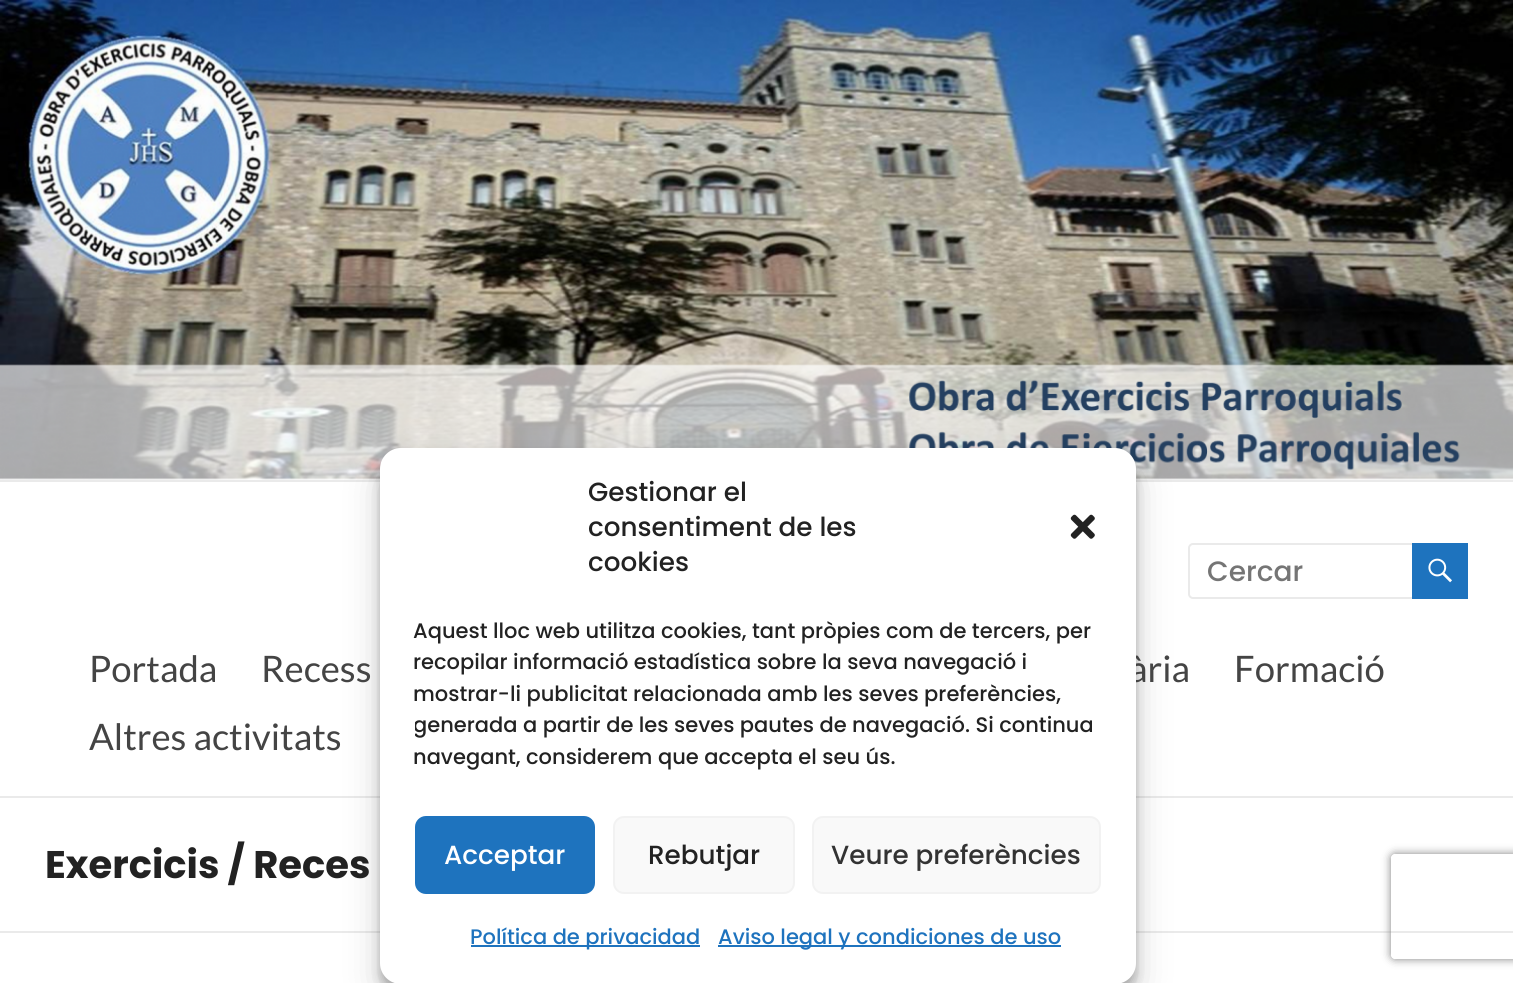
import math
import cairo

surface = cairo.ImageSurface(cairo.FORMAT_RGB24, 1513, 983)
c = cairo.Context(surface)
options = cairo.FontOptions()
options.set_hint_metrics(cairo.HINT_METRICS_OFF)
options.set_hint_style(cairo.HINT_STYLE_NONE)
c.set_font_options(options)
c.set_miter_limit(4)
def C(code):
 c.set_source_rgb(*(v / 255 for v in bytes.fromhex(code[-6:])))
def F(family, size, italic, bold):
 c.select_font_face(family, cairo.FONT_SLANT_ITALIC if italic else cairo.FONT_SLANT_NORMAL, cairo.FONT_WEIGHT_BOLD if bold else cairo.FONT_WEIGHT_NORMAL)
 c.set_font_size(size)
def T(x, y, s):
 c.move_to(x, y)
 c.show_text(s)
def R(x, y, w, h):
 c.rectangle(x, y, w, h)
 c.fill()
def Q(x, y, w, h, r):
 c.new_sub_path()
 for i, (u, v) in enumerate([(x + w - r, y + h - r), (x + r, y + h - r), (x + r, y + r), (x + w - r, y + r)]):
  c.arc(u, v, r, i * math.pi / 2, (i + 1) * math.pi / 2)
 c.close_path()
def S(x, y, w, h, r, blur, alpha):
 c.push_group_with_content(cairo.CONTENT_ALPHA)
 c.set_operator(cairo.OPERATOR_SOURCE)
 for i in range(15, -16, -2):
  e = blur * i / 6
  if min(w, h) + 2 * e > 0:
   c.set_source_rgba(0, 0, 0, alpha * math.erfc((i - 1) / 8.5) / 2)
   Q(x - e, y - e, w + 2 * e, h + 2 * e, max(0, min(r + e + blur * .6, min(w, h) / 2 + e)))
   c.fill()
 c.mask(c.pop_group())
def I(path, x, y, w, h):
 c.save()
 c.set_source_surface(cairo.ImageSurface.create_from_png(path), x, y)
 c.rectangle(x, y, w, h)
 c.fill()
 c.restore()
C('ffffff')
c.paint()
I('2.png',0,0,1513,480)
C('eaeaea')
R(0,480,1513,2)
R(0,796,1513,2)
R(0,931,1513,2)
C('000000')
S(380,459,756,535,21,5,.23)
Q(1189,544,226,54,4)
C('eaeaea')
c.stroke()
C('000000')
S(380,466,756,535,21,17.5,.19)
F('Lato',36.5,0,0)
C('444444')
T(1129,682,'ària')
C('ffffff')
Q(380,448,756,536,21)
c.fill()
F('Poppins Medium',26.25,0,0)
C('222222')
T(588,501,'Gestionar el')
T(588,536,'consentiment de les')
T(588,571,'cookies')
I('1.png',1070,514,25,25)
F('Poppins Medium',21,0,0)
T(413,638,'Aquest lloc web utilitza cookies, tant pròpies com de tercers, per')
T(413,669,'recopilar informació estadística sobre la seva navegació i')
T(413,701,'mostrar-li publicitat relacionada amb les seves preferències,')
c.save()
c.rectangle(415,614,686,167)
c.clip()
T(413,732,'generada a partir de les seves pautes de navegació. Si continua')
c.restore()
T(413,764,'navegant, considerem que accepta el seu ús.')
C('1e73be')
Q(416,817,178,76,10)
c.fill_preserve()
c.stroke()
F('Poppins Medium',26.25,0,0)
C('ffffff')
T(444,864,'Acceptar')
C('f9f9f9')
Q(614,817,180,76,10)
c.fill_preserve()
C('f2f2f2')
c.stroke()
C('222222')
T(648,864,'Rebutjar')
C('f9f9f9')
Q(813,817,287,76,10)
c.fill_preserve()
C('f2f2f2')
c.stroke()
C('333333')
T(831,864,'Veure preferències')
C('1e73be')
R(471,945,229,2)
F('Poppins Medium',21,0,0)
T(470,944,'Política de privacidad')
R(718,945,343,2)
T(718,944,'Aviso legal y condiciones de uso')
F('Poppins Medium',28,0,0)
C('757575')
T(1207,581,'Cercar')
C('1e73be')
R(1412,543,56,56)
I('3.png',1428,558,24,25)
F('Lato',36.5,0,0)
C('444444')
T(89,682,'Portada')
T(261,682,'Recess')
T(1234,682,'Formació')
T(89,750,'Altres activitats')
F('Poppins',38.5,0,1)
C('222222')
T(45,878,'Exercicis / Reces')
c.save()
c.set_fill_rule(cairo.FILL_RULE_EVEN_ODD)
c.new_path()
c.move_to(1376,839)
c.line_to(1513,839)
c.line_to(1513,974)
c.line_to(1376,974)
c.close_path()
c.move_to(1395,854)
c.line_to(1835,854)
c.curve_to(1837,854,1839,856,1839,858)
c.line_to(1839,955)
c.curve_to(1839,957,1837,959,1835,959)
c.line_to(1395,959)
c.curve_to(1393,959,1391,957,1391,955)
c.line_to(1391,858)
c.curve_to(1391,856,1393,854,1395,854)
c.close_path()
c.clip()
C('808080')
S(1391,854,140,105,4,4.5,1)
c.restore()
surface.write_to_png('o.png')
